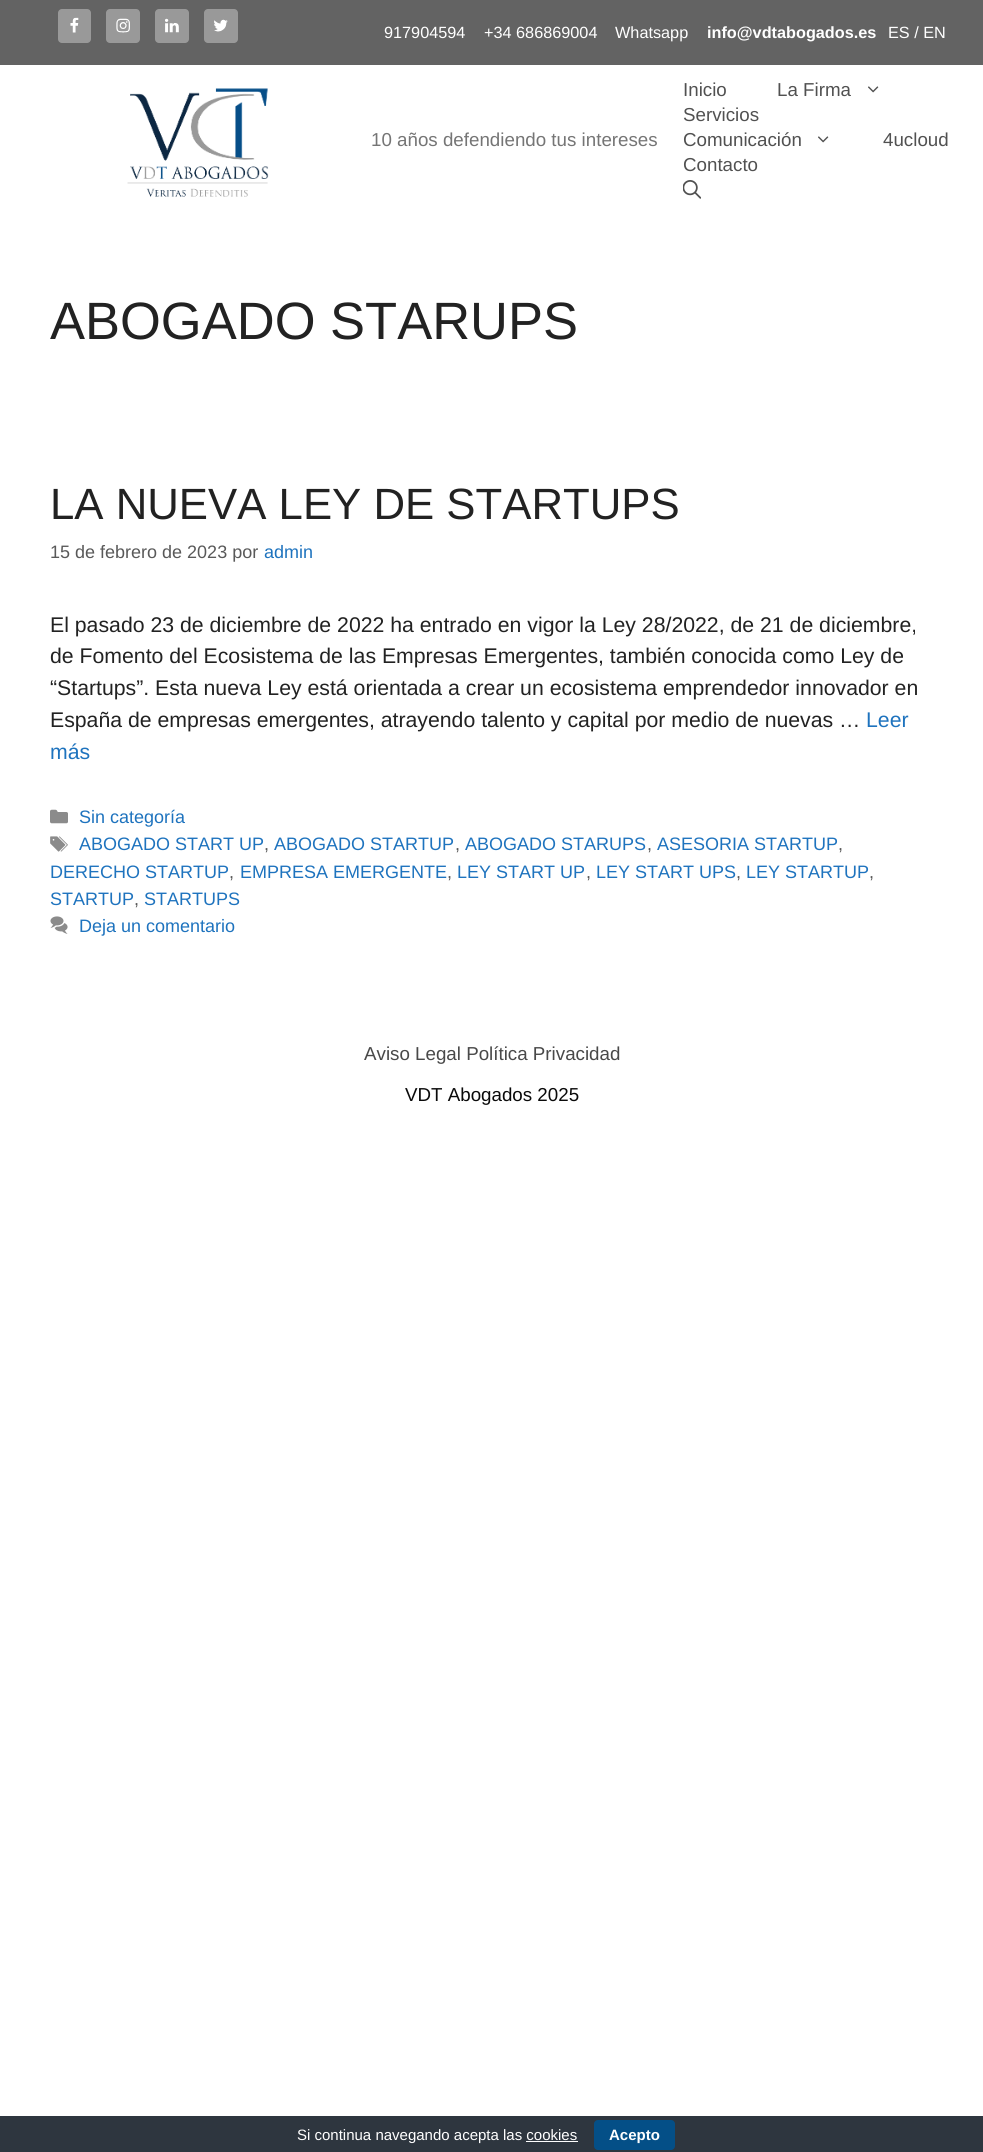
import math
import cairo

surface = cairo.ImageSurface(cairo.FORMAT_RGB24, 983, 2152)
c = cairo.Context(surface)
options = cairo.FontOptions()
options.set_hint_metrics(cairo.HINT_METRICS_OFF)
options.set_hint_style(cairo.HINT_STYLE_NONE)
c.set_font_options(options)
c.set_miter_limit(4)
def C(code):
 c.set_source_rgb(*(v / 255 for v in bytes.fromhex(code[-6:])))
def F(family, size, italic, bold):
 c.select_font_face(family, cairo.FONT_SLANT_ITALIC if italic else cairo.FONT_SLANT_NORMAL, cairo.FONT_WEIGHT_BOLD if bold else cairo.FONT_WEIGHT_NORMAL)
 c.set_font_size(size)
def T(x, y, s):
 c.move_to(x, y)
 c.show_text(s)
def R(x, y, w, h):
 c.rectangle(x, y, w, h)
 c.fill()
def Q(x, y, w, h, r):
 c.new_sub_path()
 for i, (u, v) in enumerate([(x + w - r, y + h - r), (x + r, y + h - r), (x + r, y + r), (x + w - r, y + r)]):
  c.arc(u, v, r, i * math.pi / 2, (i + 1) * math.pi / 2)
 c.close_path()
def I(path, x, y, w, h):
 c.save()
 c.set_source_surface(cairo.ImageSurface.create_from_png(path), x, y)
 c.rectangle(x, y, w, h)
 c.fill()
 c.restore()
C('ffffff')
c.paint()
C('636363')
R(0,0,983,65)
C('999999')
Q(58,9,33,34,4)
c.fill()
I('1.png',70,17,9,16)
Q(106,9,34,34,4)
c.fill()
I('2.png',116,18,14,15)
Q(155,9,34,34,4)
c.fill()
I('3.png',165,18,14,15)
Q(204,9,34,34,4)
c.fill()
I('4.png',214,19,14,13)
F('Liberation Sans',16.25,0,0)
C('ffffff')
T(384,38,'917904594')
T(484,38,'+34 686869004')
T(615,38,'Whatsapp')
F('Liberation Sans',16.25,0,1)
T(707,38,'info@vdtabogados.es')
F('Liberation Sans',16.25,0,0)
T(888,38,'ES / EN')
I('5.png',127,88,142,109)
F('Liberation Sans',18.75,0,0)
C('757575')
T(371,146,'10 años defendiendo tus intereses')
C('515151')
T(683,96,'Inicio')
T(777,96,'La Firma')
I('6.png',868,86,11,7)
T(683,121,'Servicios')
T(683,146,'Comunicación')
I('6.png',818,136,11,7)
T(883,146,'4ucloud')
T(683,171,'Contacto')
I('7.png',683,180,18,19)
F('Liberation Sans',52.5,0,0)
C('222222')
T(50,339,'ABOGADO STARUPS')
F('Liberation Sans',43.75,0,0)
T(50,519,'LA NUEVA LEY DE STARTUPS')
F('Liberation Sans',18,0,0)
C('595959')
T(50,558,'15 de febrero de 2023 por')
C('1e73be')
T(264,558,'admin')
F('Liberation Sans',21.25,0,0)
C('222222')
T(50,632,'El pasado 23 de diciembre de 2022 ha entrado en vigor la Ley 28/2022, de 21 de diciembre,')
T(50,663,'de Fomento del Ecosistema de las Empresas Emergentes, también conocida como Ley de')
T(50,695,'“Startups”. Esta nueva Ley está orientada a crear un ecosistema emprendedor innovador en')
T(50,727,'España de empresas emergentes, atrayendo talento y capital por medio de nuevas …')
C('1e73be')
T(866,727,'Leer')
T(50,759,'más')
I('8.png',50,809,18,15)
F('Liberation Sans',18,0,0)
T(79,823,'Sin categoría')
I('9.png',50,836,18,16)
T(79,850,'ABOGADO START UP')
C('595959')
T(264,850,',')
C('1e73be')
T(274,850,'ABOGADO STARTUP')
C('595959')
T(455,850,',')
C('1e73be')
T(465,850,'ABOGADO STARUPS')
C('595959')
T(647,850,',')
C('1e73be')
T(657,850,'ASESORIA STARTUP')
C('595959')
T(838,850,',')
C('1e73be')
T(50,878,'DERECHO STARTUP')
C('595959')
T(229,878,',')
C('1e73be')
T(240,878,'EMPRESA EMERGENTE')
C('595959')
T(447,878,',')
C('1e73be')
T(457,878,'LEY START UP')
C('595959')
T(586,878,',')
C('1e73be')
T(596,878,'LEY START UPS')
C('595959')
T(736,878,',')
C('1e73be')
T(746,878,'LEY STARTUP')
C('595959')
T(869,878,',')
C('1e73be')
T(50,905,'STARTUP')
C('595959')
T(134,905,',')
C('1e73be')
T(144,905,'STARTUPS')
I('10.png',50,916,18,18)
T(79,932,'Deja un comentario')
F('Liberation Sans',18.75,0,0)
C('494949')
T(364,1060,'Aviso Legal Política Privacidad')
C('0a0a0a')
T(405,1101,'VDT Abogados 2025')
C('2e363f')
R(0,2116,983,36)
F('Liberation Sans',15,0,0)
C('ffffff')
T(297,2140,'Si continua navegando acepta las cookies')
C('044f87')
Q(594,2120,81,30,4)
c.fill()
F('Liberation Sans',15,0,1)
C('ffffff')
T(609,2140,'Acepto')
R(526,2141,52,1)
surface.write_to_png('o.png')
